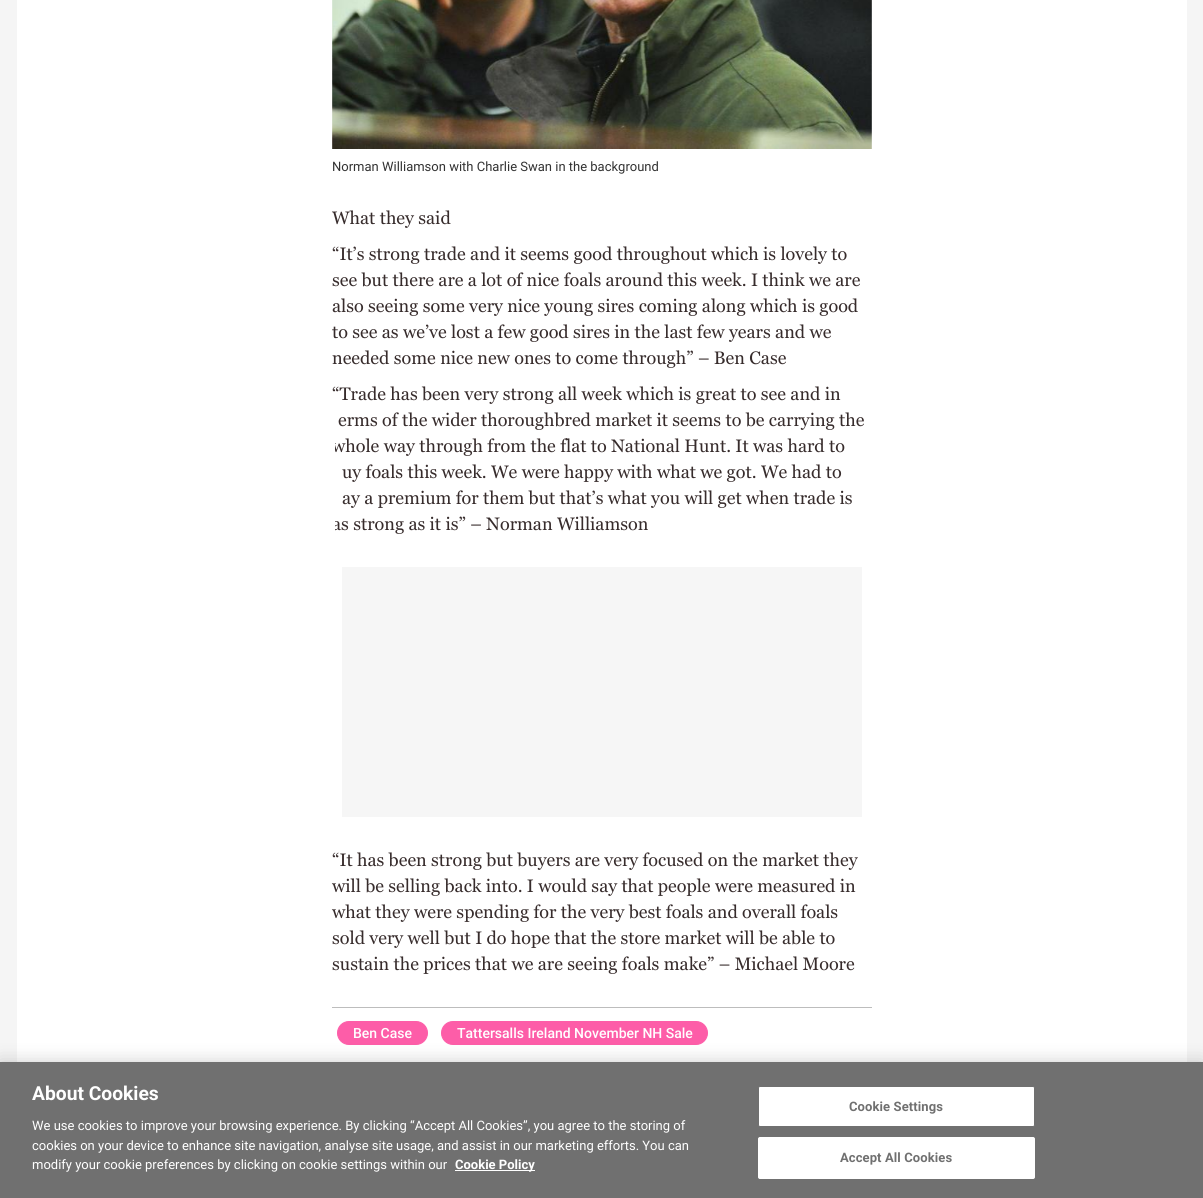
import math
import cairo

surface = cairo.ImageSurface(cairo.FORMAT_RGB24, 1203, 1198)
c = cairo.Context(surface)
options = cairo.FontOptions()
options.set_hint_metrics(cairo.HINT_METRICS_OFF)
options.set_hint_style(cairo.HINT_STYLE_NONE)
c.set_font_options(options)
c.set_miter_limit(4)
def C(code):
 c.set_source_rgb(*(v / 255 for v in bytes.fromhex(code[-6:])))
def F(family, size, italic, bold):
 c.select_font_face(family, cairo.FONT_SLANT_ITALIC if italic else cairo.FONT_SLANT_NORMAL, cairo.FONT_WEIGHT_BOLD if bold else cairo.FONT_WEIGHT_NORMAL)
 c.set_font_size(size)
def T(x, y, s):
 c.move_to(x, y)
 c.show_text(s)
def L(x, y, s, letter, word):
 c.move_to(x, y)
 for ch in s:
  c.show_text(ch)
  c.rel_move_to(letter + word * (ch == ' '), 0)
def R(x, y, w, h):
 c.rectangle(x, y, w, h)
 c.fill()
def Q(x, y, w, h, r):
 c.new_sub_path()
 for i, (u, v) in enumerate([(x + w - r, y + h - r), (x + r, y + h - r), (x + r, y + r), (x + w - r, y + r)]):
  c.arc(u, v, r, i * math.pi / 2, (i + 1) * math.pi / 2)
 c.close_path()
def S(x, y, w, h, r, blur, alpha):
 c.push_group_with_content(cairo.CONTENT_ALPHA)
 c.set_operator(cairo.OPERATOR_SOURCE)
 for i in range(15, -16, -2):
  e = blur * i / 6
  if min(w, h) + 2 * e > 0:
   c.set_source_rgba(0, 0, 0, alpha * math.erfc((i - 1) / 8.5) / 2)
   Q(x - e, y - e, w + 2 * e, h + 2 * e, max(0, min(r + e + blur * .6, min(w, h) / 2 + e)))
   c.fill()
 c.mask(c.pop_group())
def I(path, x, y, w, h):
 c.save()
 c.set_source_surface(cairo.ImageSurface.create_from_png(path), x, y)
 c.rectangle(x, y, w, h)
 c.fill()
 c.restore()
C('f5f5f5')
c.paint()
C('ffffff')
R(17,0,1170,1062)
I('1.png',332,0,540,149)
F('Roboto',13,0,0)
C('333333')
T(332,171,'Norman Williamson with Charlie Swan in the background')
C('bdbdbd')
R(332,1007,540,1)
F('Georgia',18,0,0)
C('372c2c')
T(332,224,'What they said')
T(332,260,'“It’s strong trade and it seems good throughout which is lovely to')
T(332,286,'see but there are a lot of nice foals around this week. I think we are')
T(332,312,'also seeing some very nice young sires coming along which is good')
T(332,338,'to see as we’ve lost a few good sires in the last few years and we')
T(332,364,'needed some nice new ones to come through” – Ben Case')
T(332,400,'“Trade has been very strong all week which is great to see and in')
T(338,426,'erms of the wider thoroughbred market it seems to be carrying the')
T(332,452,'whole way through from the flat to National Hunt. It was hard to')
T(342,478,'uy foals this week. We were happy with what we got. We had to')
T(342,504,'ay a premium for them but that’s what you will get when trade is')
T(332,530,'as strong as it is” – Norman Williamson')
C('f6f6f6')
R(342,567,520,250)
C('372c2c')
T(332,866,'“It has been strong but buyers are very focused on the market they')
T(332,892,'will be selling back into. I would say that people were measured in')
T(332,918,'what they were spending for the very best foals and overall foals')
T(332,944,'sold very well but I do hope that the store market will be able to')
T(332,970,'sustain the prices that we are seeing foals make” – Michael Moore')
C('fd5da8')
Q(337.5,1021.5,90,23,11.5)
c.fill_preserve()
c.set_line_width(1)
c.stroke()
F('Roboto Medium',14,0,0)
C('ffffff')
T(353,1038,'Ben Case')
C('fd5da8')
Q(441.5,1021.5,266,23,11.5)
c.fill_preserve()
c.stroke()
C('ffffff')
T(457,1038,'Tattersalls Ireland November NH Sale')
R(331,443,4,88)
C('000000')
S(0,1062,1203,136,0,9,.2)
C('707070')
R(0,1062,1203,136)
F('Roboto',19.25,0,1)
C('ffffff')
T(32,1100,'About Cookies')
F('Roboto',13,0,0)
T(32,1130,'We use cookies to improve your browsing experience. By clicking “Accept All Cookies”, you agree to the storing of')
T(32,1150,'cookies on your device to enhance site navigation, analyse site usage, and assist in our marketing efforts. You can')
T(32,1169,'modify your cookie preferences by clicking on cookie settings within our')
R(455,1170,80,1)
F('Roboto',13,0,1)
T(455,1169,'Cookie Policy')
Q(758.5,1086.5,276,40,1.5)
c.fill_preserve()
C('707070')
c.stroke()
L(849,1111,'Cookie Settings',.1,0)
C('ffffff')
Q(758.5,1137.5,276,41,1.5)
c.fill_preserve()
c.stroke()
C('707070')
L(840,1162,'Accept All Cookies',.1,0)
surface.write_to_png('o.png')
